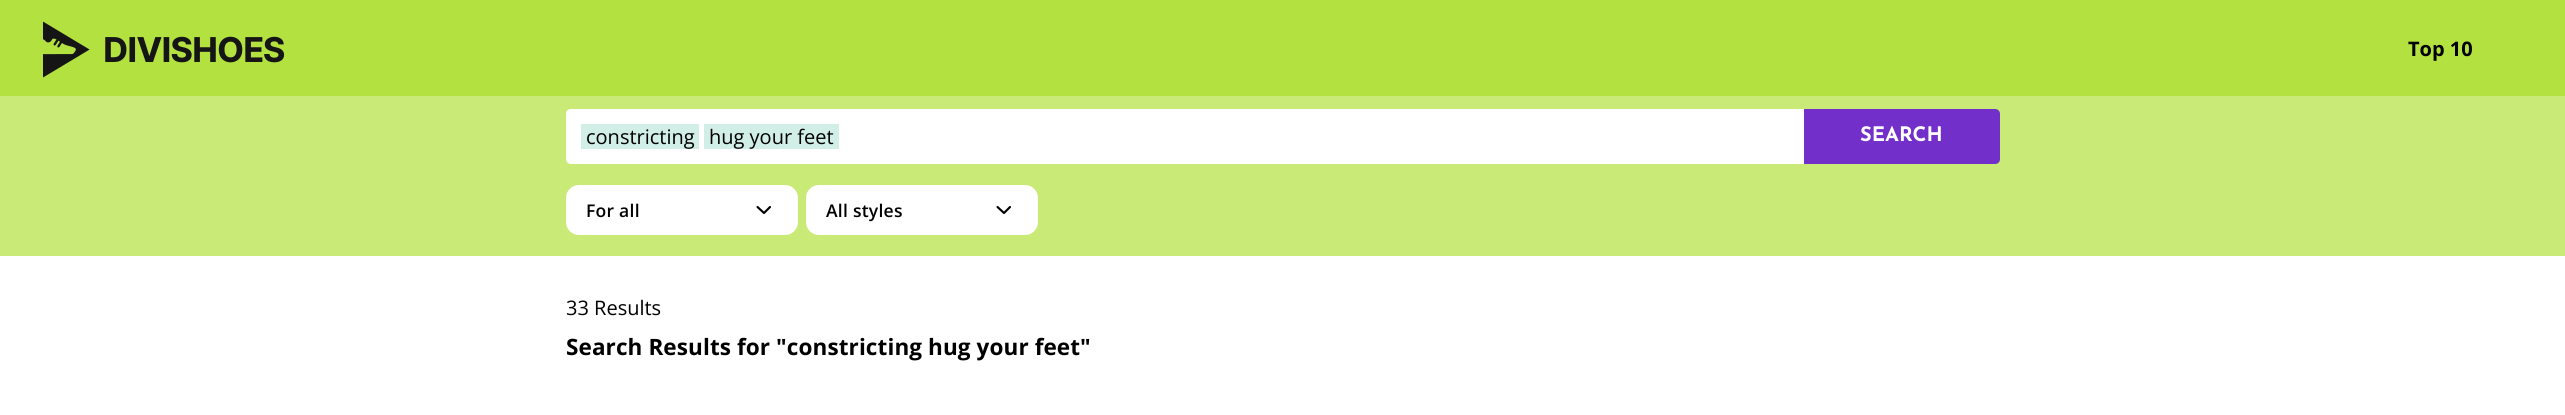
import math
import cairo

surface = cairo.ImageSurface(cairo.FORMAT_RGB24, 2565, 415)
c = cairo.Context(surface)
options = cairo.FontOptions()
options.set_hint_metrics(cairo.HINT_METRICS_OFF)
options.set_hint_style(cairo.HINT_STYLE_NONE)
c.set_font_options(options)
c.set_miter_limit(4)
def C(code):
 c.set_source_rgb(*(v / 255 for v in bytes.fromhex(code[-6:])))
def F(family, size, italic, bold):
 c.select_font_face(family, cairo.FONT_SLANT_ITALIC if italic else cairo.FONT_SLANT_NORMAL, cairo.FONT_WEIGHT_BOLD if bold else cairo.FONT_WEIGHT_NORMAL)
 c.set_font_size(size)
def T(x, y, s):
 c.move_to(x, y)
 c.show_text(s)
def L(x, y, s, letter, word):
 c.move_to(x, y)
 for ch in s:
  c.show_text(ch)
  c.rel_move_to(letter + word * (ch == ' '), 0)
def R(x, y, w, h):
 c.rectangle(x, y, w, h)
 c.fill()
def Q(x, y, w, h, r):
 c.new_sub_path()
 for i, (u, v) in enumerate([(x + w - r, y + h - r), (x + r, y + h - r), (x + r, y + r), (x + w - r, y + r)]):
  c.arc(u, v, r, i * math.pi / 2, (i + 1) * math.pi / 2)
 c.close_path()
def I(path, x, y, w, h):
 c.save()
 c.set_source_surface(cairo.ImageSurface.create_from_png(path), x, y)
 c.rectangle(x, y, w, h)
 c.fill()
 c.restore()
C('ffffff')
c.paint()
C('b3e140')
R(0,0,2565,96)
I('1.png',43,21,242,57)
F('Open Sans',20,0,1)
C('000000')
T(2408,56,'Top 10')
C('c9ea77')
R(0,96,2565,160)
C('ffffff')
c.new_path()
c.move_to(571,109)
c.line_to(1804,109)
c.line_to(1804,164)
c.line_to(571,164)
c.curve_to(568,164,566,162,566,159)
c.line_to(566,114)
c.curve_to(566,111,568,109,571,109)
c.close_path()
c.fill()
C('d1efe6')
R(581,124,118,25)
F('Open Sans',20,0,0)
C('000000')
T(586,144,'constricting')
C('d1efe6')
R(704,124,135,25)
C('000000')
T(709,144,'hug your feet')
C('732fca')
c.new_path()
c.move_to(1804,109)
c.line_to(1995,109)
c.curve_to(1998,109,2000,111,2000,114)
c.line_to(2000,159)
c.curve_to(2000,162,1998,164,1995,164)
c.line_to(1804,164)
c.close_path()
c.fill()
F('Josefin Sans',20,0,1)
C('ffffff')
T(1860,141,'SEARCH')
Q(566,185,232,50,13)
c.fill()
F('Open Sans SemiBold',17.5,0,0)
C('000000')
L(586,217,'For all',.25,0)
c.new_path()
c.move_to(757.5,207)
c.line_to(764,213)
c.line_to(770,207)
c.set_line_width(2.1)
c.set_line_cap(cairo.LINE_CAP_ROUND)
c.set_line_join(cairo.LINE_JOIN_ROUND)
c.stroke()
C('ffffff')
Q(806,185,232,50,13)
c.fill()
C('000000')
L(826,217,'All styles',.25,0)
c.new_path()
c.move_to(997.5,207)
c.line_to(1004,213)
c.line_to(1010,207)
c.stroke()
F('Open Sans',20,0,0)
T(566,315,'33 Results')
F('Open Sans',22.5,0,1)
L(566,355,'Search Results for "constricting hug your feet"',.1,0)
surface.write_to_png('o.png')
